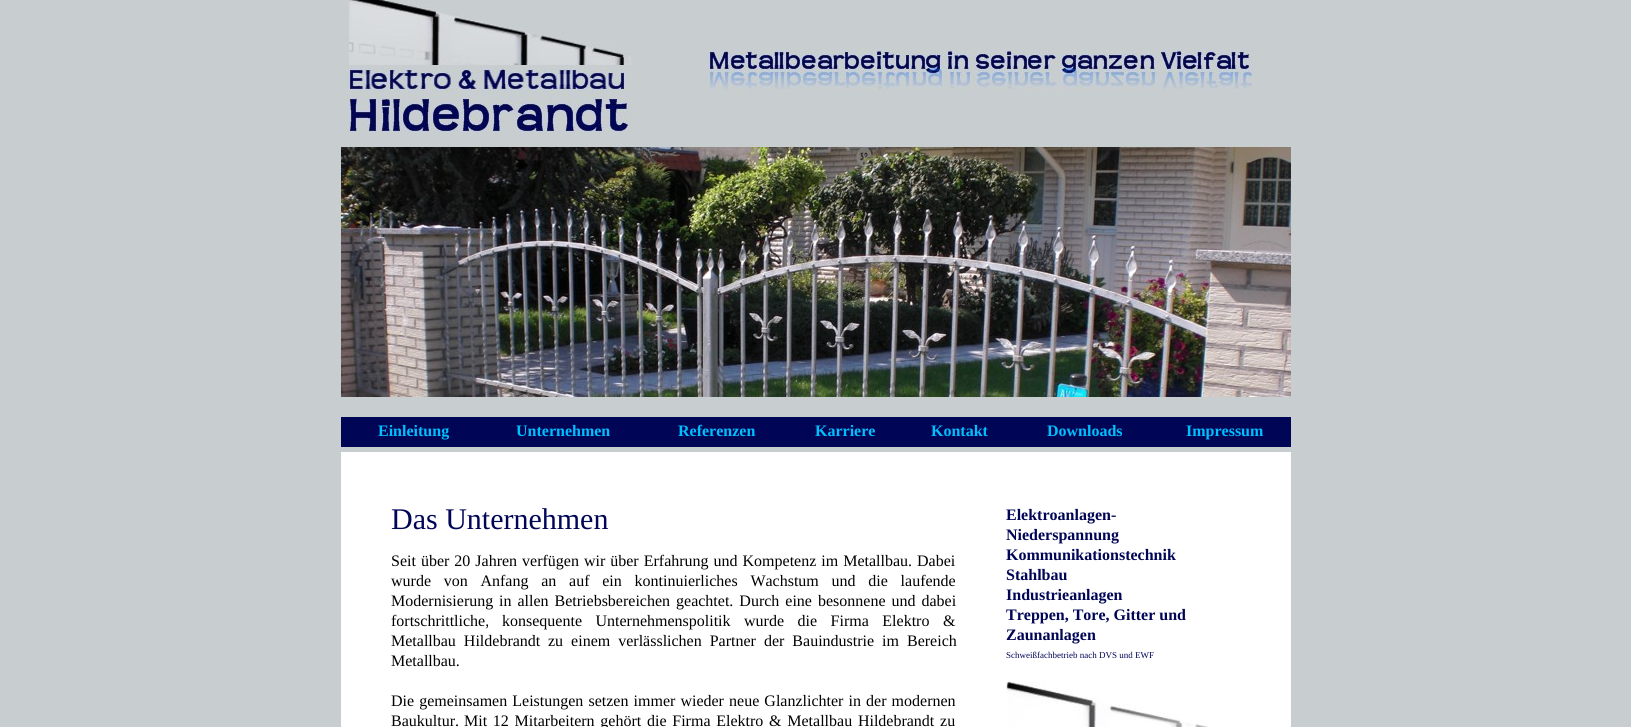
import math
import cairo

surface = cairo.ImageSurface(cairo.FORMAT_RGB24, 1631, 727)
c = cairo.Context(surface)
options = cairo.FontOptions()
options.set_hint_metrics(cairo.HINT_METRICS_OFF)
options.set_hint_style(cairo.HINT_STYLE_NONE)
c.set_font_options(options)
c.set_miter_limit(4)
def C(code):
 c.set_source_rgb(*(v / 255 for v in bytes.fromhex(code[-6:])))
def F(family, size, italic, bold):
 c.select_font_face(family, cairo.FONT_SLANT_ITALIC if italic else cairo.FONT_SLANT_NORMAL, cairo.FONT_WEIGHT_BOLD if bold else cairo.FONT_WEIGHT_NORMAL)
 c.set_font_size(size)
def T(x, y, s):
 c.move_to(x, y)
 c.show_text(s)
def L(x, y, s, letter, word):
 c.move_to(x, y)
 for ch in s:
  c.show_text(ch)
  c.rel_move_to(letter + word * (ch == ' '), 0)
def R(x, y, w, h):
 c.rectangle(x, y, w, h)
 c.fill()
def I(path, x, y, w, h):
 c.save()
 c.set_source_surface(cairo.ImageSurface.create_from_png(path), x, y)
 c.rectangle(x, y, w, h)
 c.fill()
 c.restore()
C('c8cecf')
c.paint()
C('ffffff')
R(341,452,950,275)
I('1.png',341,0,950,147)
I('2.png',341,147,950,250)
C('000556')
R(341,417,950,30)
F('Liberation Serif',16,0,1)
C('00bfff')
T(378,436,'Einleitung')
T(516,436,'Unternehmen')
T(678,436,'Referenzen')
T(815,436,'Karriere')
T(931,436,'Kontakt')
T(1047,436,'Downloads')
T(1186,436,'Impressum')
F('Liberation Serif',30,0,0)
C('000556')
T(391,529,'Das Unternehmen')
F('Liberation Serif',16,0,0)
C('000000')
L(391,566,'Seit über 20 Jahren verfügen wir über Erfahrung und Kompetenz im Metallbau.',0,1)
T(917,566,'Dabei')
L(391,586,'wurde von Anfang an auf ein kontinuierliches Wachstum und die laufende',0,8.75)
T(391,606,'Modernisierung')
L(499,606,'in allen Betriebsbereichen geachtet. Durch eine besonnene und dabei',0,2)
T(391,626,'fortschrittliche,')
L(502,626,'konsequente Unternehmenspolitik wurde die Firma Elektro &',0,9.5)
L(391,646,'Metallbau Hildebrandt',0,4)
L(548,646,'zu einem verlässlichen Partner der Bauindustrie im Bereich',0,4)
T(391,666,'Metallbau.')
L(391,706,'Die gemeinsamen Leistungen setzen immer wieder neue Glanzlichter in der modernen',0,1.1)
T(391,726,'Baukultur.')
L(464,726,'Mit 12 Mitarbeitern gehört die Firma Elektro & Metallbau Hildebrandt zu',0,1.75)
F('Liberation Serif',16,0,1)
C('000556')
T(1006,520,'Elektroanlagen-')
T(1006,540,'Niederspannung')
T(1006,560,'Kommunikationstechnik')
T(1006,580,'Stahlbau')
T(1006,600,'Industrieanlagen')
T(1006,620,'Treppen, Tore, Gitter und')
T(1006,640,'Zaunanlagen')
F('Liberation Serif',9,0,0)
T(1006,658,'Schweißfachbetrieb nach DVS und EWF')
I('3.png',1006,681,203,46)
surface.write_to_png('o.png')
